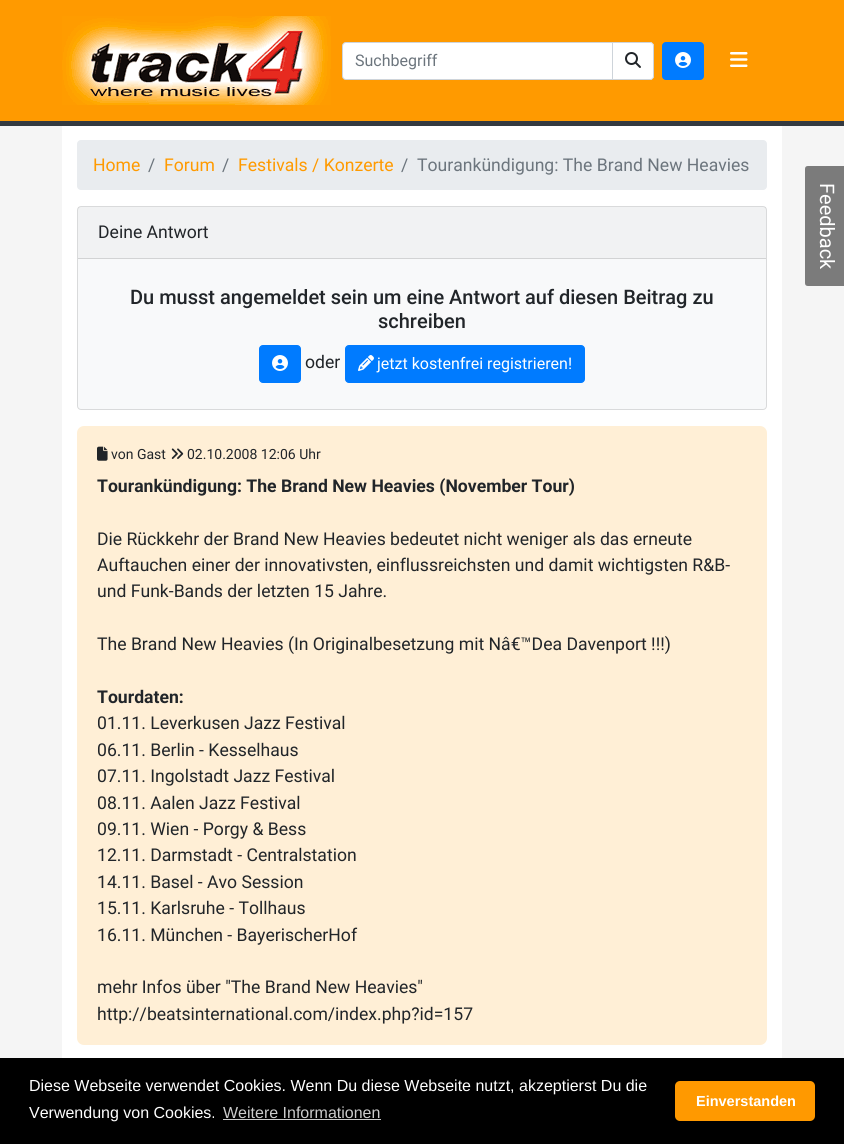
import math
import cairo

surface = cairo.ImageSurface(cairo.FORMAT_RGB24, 844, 1144)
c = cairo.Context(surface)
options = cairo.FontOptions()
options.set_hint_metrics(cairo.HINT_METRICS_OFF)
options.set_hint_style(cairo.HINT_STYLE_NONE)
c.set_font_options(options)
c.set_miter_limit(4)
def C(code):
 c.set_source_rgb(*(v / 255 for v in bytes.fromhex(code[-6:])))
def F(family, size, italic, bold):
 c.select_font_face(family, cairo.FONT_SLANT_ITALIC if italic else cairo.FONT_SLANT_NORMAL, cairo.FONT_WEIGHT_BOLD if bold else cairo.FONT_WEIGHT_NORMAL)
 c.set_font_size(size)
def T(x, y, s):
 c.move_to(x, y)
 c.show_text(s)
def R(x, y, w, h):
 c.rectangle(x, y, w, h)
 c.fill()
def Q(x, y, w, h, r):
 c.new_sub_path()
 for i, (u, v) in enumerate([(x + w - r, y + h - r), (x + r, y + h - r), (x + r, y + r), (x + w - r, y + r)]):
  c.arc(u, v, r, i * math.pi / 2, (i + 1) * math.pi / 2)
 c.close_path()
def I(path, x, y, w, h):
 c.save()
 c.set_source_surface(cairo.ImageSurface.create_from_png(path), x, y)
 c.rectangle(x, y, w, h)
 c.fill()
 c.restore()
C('f5f5f5')
c.paint()
C('ff9a00')
R(0,0,844,121)
C('343a40')
R(0,121,844,5)
I('1.png',62,16,269,89)
C('ffffff')
c.new_path()
c.move_to(346,42.5)
c.line_to(612.5,42.5)
c.line_to(612.5,79.5)
c.line_to(346,79.5)
c.curve_to(344,79.5,342.5,78,342.5,76)
c.line_to(342.5,46)
c.curve_to(342.5,44,344,42.5,346,42.5)
c.close_path()
c.fill_preserve()
C('ced4da')
c.set_line_width(1)
c.stroke()
F('Roboto',16,0,0)
C('6c757d')
T(355,66,'Suchbegriff')
C('ffffff')
c.new_path()
c.move_to(613,42)
c.line_to(650,42)
c.curve_to(652,42,654,44,654,46)
c.line_to(654,76)
c.curve_to(654,78,652,80,650,80)
c.line_to(613,80)
c.close_path()
c.fill()
C('ced4da')
c.set_fill_rule(cairo.FILL_RULE_EVEN_ODD)
c.new_path()
c.move_to(613,42)
c.line_to(650,42)
c.curve_to(652,42,654,44,654,46)
c.line_to(654,76)
c.curve_to(654,78,652,80,650,80)
c.line_to(613,80)
c.close_path()
c.move_to(613,43)
c.line_to(650,43)
c.curve_to(652,43,653,44,653,46)
c.line_to(653,76)
c.curve_to(653,78,652,79,650,79)
c.line_to(613,79)
c.close_path()
c.fill()
I('2.png',625,52,16,16)
C('007bff')
Q(662.5,42.5,41,37,3.5)
c.fill_preserve()
c.stroke()
I('3.png',675,52,16,16)
I('4.png',730,52,18,15)
C('ffffff')
R(62,126,720,932)
C('e9ecef')
Q(77,140,690,50,4)
c.fill()
F('Roboto',17.6,0,0)
C('ff9a00')
T(93,171,'Home')
C('6c757d')
T(148,171,'/')
C('ff9a00')
T(164,171,'Forum')
C('6c757d')
T(222,171,'/')
C('ff9a00')
T(238,171,'Festivals / Konzerte')
C('6c757d')
T(401,171,'/')
T(417,171,'Tourankündigung: The Brand New Heavies')
C('f8f9fa')
Q(77.5,206.5,689,203,3.5)
c.fill_preserve()
C('d9dadb')
c.stroke()
c.set_source_rgba(0,0,0,0.03)
R(78,207,688,51)
C('d2d3d4')
R(78,258,688,1)
C('212529')
T(98,238,'Deine Antwort')
F('Roboto Medium',20,0,0)
T(130,304,'Du musst angemeldet sein um eine Antwort auf diesen Beitrag zu')
T(378,328,'schreiben')
C('007bff')
Q(259.5,345.5,41,37,3.5)
c.fill_preserve()
c.stroke()
I('3.png',272,355,16,16)
F('Roboto',17.6,0,0)
C('212529')
T(305,368,'oder')
C('007bff')
Q(345.5,345.5,239,37,3.5)
c.fill_preserve()
c.stroke()
I('5.png',358,355,16,16)
F('Roboto',16,0,0)
C('ffffff')
T(377,369,'jetzt kostenfrei registrieren!')
C('ffefd6')
Q(77,426,690,619,7)
c.fill()
I('6.png',97,446,11,15)
F('Roboto',14,0,0)
C('212529')
T(111,459,'von Gast')
I('7.png',171,448,13,11)
T(187,459,'02.10.2008 12:06 Uhr')
F('Roboto',17.6,0,1)
T(97,492,'Tourankündigung: The Brand New Heavies (November Tour)')
F('Roboto',17.6,0,0)
T(97,545,'Die Rückkehr der Brand New Heavies bedeutet nicht weniger als das erneute')
T(97,571,'Auftauchen einer der innovativsten, einflussreichsten und damit wichtigsten R&B-')
T(97,597,'und Funk-Bands der letzten 15 Jahre.')
T(97,650,'The Brand New Heavies (In Originalbesetzung mit Nâ€™Dea Davenport !!!)')
F('Roboto',17.6,0,1)
T(97,703,'Tourdaten:')
F('Roboto',17.6,0,0)
T(97,729,'01.11. Leverkusen Jazz Festival')
T(97,756,'06.11. Berlin - Kesselhaus')
T(97,782,'07.11. Ingolstadt Jazz Festival')
T(97,809,'08.11. Aalen Jazz Festival')
T(97,835,'09.11. Wien - Porgy & Bess')
T(97,861,'12.11. Darmstadt - Centralstation')
T(97,888,'14.11. Basel - Avo Session')
T(97,914,'15.11. Karlsruhe - Tollhaus')
T(97,941,'16.11. München - BayerischerHof')
T(97,993,'mehr Infos über "The Brand New Heavies"')
T(97,1020,'http://beatsinternational.com/index.php?id=157')
C('7b7b7b')
c.set_fill_rule(cairo.FILL_RULE_WINDING)
c.new_path()
c.move_to(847,169)
c.line_to(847,283)
c.curve_to(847,285,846,286,844,286)
c.line_to(808,286)
c.curve_to(806,286,805,285,805,283)
c.line_to(805,169)
c.curve_to(805,167,806,166,808,166)
c.line_to(844,166)
c.curve_to(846,166,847,167,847,169)
c.close_path()
c.fill()
F('Roboto',20,0,0)
C('ffffff')
c.save()
c.translate(820,183)
c.rotate(90 * math.pi / 180)
T(0,0,'Feedback')
c.restore()
C('000000')
R(0,1058,844,86)
F('Liberation Sans',16,0,0)
C('ffffff')
T(29,1091,'Diese Webseite verwendet Cookies. Wenn Du diese Webseite nutzt, akzeptierst Du die')
T(29,1118,'Verwendung von Cookies.')
C('cccccc')
T(223,1118,'Weitere Informationen')
R(223,1119,158,1)
C('ff9900')
Q(675,1081,140,40,5)
c.fill()
F('Liberation Sans',14.5,0,1)
C('ffffff')
T(696,1106,'Einverstanden')
surface.write_to_png('o.png')
